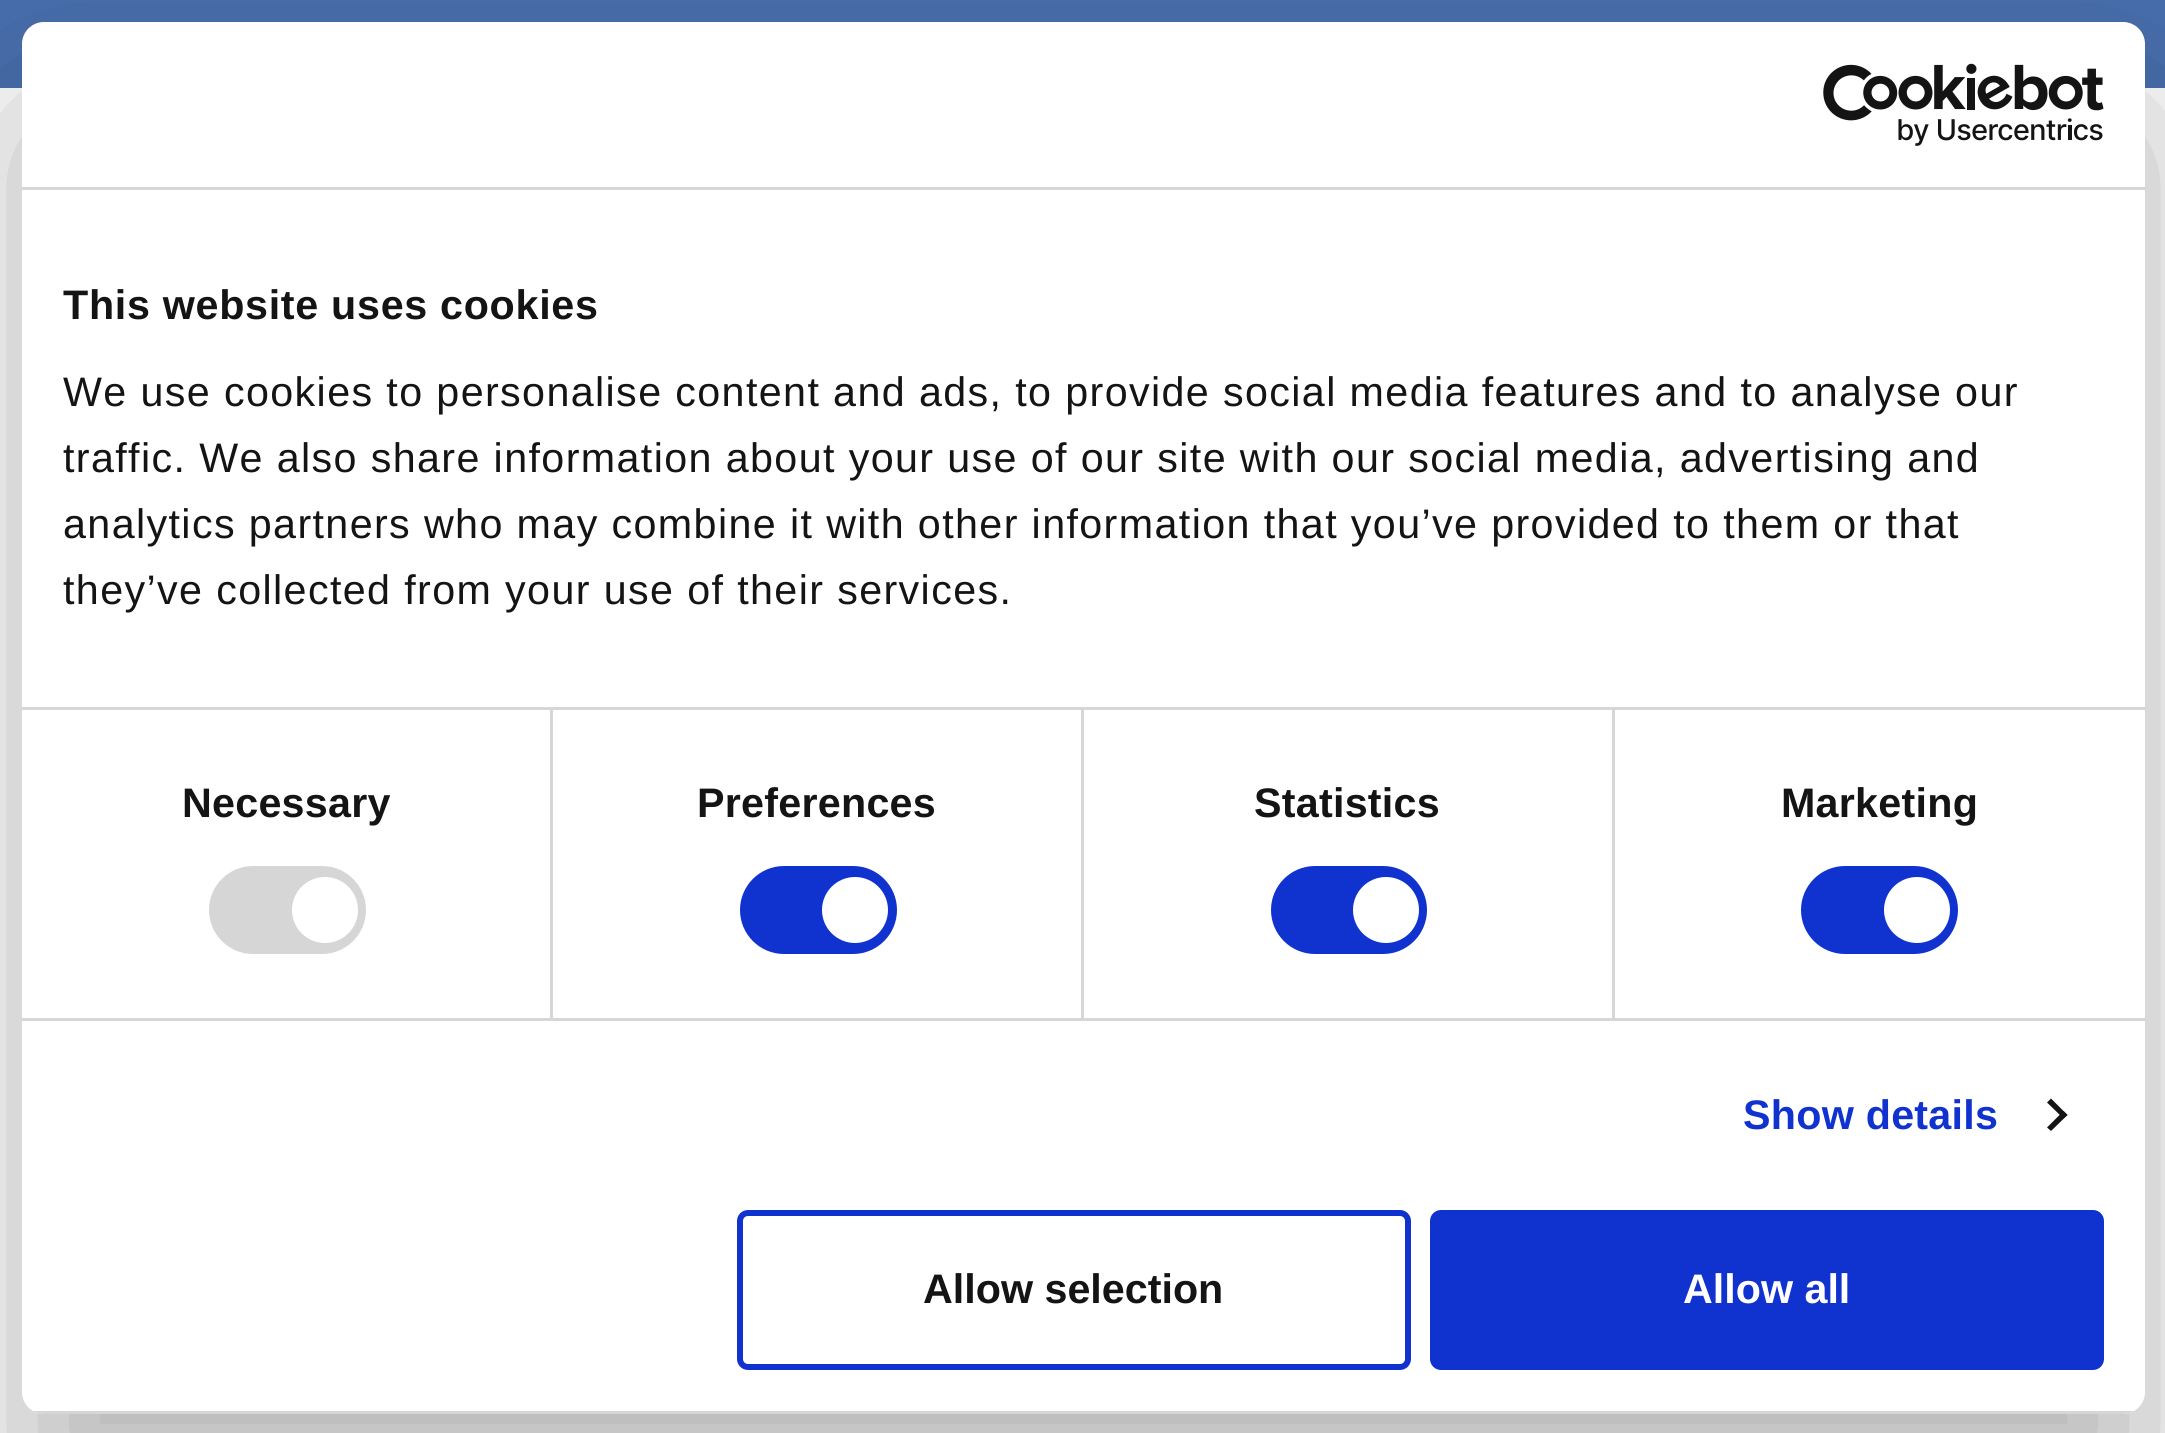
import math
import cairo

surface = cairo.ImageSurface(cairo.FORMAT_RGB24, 2165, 1433)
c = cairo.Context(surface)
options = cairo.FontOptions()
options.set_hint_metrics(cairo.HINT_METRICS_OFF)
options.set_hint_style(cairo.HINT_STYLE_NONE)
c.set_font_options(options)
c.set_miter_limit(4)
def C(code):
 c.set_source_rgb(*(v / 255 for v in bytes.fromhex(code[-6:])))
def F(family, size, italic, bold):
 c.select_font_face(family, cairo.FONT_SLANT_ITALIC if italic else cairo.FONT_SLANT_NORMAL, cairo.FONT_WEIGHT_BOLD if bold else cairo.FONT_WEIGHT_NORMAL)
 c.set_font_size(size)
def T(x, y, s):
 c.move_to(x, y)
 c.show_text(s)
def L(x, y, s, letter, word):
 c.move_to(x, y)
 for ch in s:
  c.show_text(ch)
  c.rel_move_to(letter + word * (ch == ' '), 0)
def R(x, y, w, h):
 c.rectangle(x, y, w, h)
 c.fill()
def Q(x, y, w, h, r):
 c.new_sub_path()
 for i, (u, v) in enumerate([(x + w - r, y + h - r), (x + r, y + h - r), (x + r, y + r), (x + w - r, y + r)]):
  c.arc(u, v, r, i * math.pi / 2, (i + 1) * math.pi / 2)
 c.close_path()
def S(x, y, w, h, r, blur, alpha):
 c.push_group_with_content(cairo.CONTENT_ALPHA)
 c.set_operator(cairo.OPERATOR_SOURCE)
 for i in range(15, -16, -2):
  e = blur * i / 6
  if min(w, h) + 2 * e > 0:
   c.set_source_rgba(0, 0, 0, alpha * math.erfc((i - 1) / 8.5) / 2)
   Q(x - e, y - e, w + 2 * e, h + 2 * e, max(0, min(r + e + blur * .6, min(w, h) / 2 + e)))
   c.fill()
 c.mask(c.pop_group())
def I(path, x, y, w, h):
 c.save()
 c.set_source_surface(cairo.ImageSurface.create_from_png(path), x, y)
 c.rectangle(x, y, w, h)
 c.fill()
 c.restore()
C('ffffff')
c.paint()
C('486fae')
R(0,0,2165,88)
C('000000')
S(22,110,2123,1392,22,93.5,.3)
C('ffffff')
Q(22,22,2123,1392,22)
c.fill()
C('d6d6d6')
R(22,187,2123,3)
I('1.png',1823,63,281,83)
R(22,707,2123,3)
F('Liberation Sans',41.25,0,1)
C('141414')
L(63,319,'This website uses cookies',.7,0)
F('Liberation Sans',41.25,0,0)
L(63,406,'We use cookies to personalise content and ads, to provide social media features and to analyse our',1.38,0)
L(63,472,'traffic. We also share information about your use of our site with our social media, advertising and',1.38,0)
L(63,538,'analytics partners who may combine it with other information that you’ve provided to them or that',1.38,0)
L(63,604,'they’ve collected from your use of their services.',1.38,0)
C('d6d6d6')
R(22,1018,2123,3)
R(550,710,3,308)
F('Liberation Sans',41.25,0,1)
C('141414')
L(182,817,'Necessary',.25,0)
C('d6d6d6')
Q(209,866,157,88,44)
c.fill()
C('ffffff')
c.arc(325,910,33,0,2 * math.pi)
c.fill()
C('d6d6d6')
R(1081,710,3,308)
C('141414')
L(697,817,'Preferences',.25,0)
C('1032cf')
Q(740,866,157,88,44)
c.fill()
C('ffffff')
c.arc(855,910,33,0,2 * math.pi)
c.fill()
C('d6d6d6')
R(1612,710,3,308)
C('141414')
L(1254,817,'Statistics',.25,0)
C('1032cf')
Q(1271,866,156,88,44)
c.fill()
C('ffffff')
c.arc(1386,910,33,0,2 * math.pi)
c.fill()
C('141414')
L(1781,817,'Marketing',.25,0)
C('1032cf')
Q(1801,866,157,88,44)
c.fill()
C('ffffff')
c.arc(1917,910,33,0,2 * math.pi)
c.fill()
C('1032cf')
L(1743,1129,'Show details',.25,0)
C('141414')
c.new_path()
c.move_to(2051,1098.5)
c.line_to(2067.5,1115)
c.line_to(2063.5,1118.5)
c.line_to(2047,1102.5)
c.close_path()
c.fill()
c.new_path()
c.move_to(2063.5,1111)
c.line_to(2067.5,1115)
c.line_to(2051,1131)
c.line_to(2047,1127.5)
c.close_path()
c.fill()
c.save()
Q(22,22,2123,1392,22)
c.clip()
C('d6d6d6')
R(33,1411,2101,3)
c.restore()
Q(740,1213,668,154,8)
C('1032cf')
c.set_line_width(6)
c.stroke()
C('141414')
T(923,1303,'Allow selection')
C('1032cf')
Q(1433,1213,668,154,8)
c.fill_preserve()
c.stroke()
C('ffffff')
T(1683,1303,'Allow all')
surface.write_to_png('o.png')
